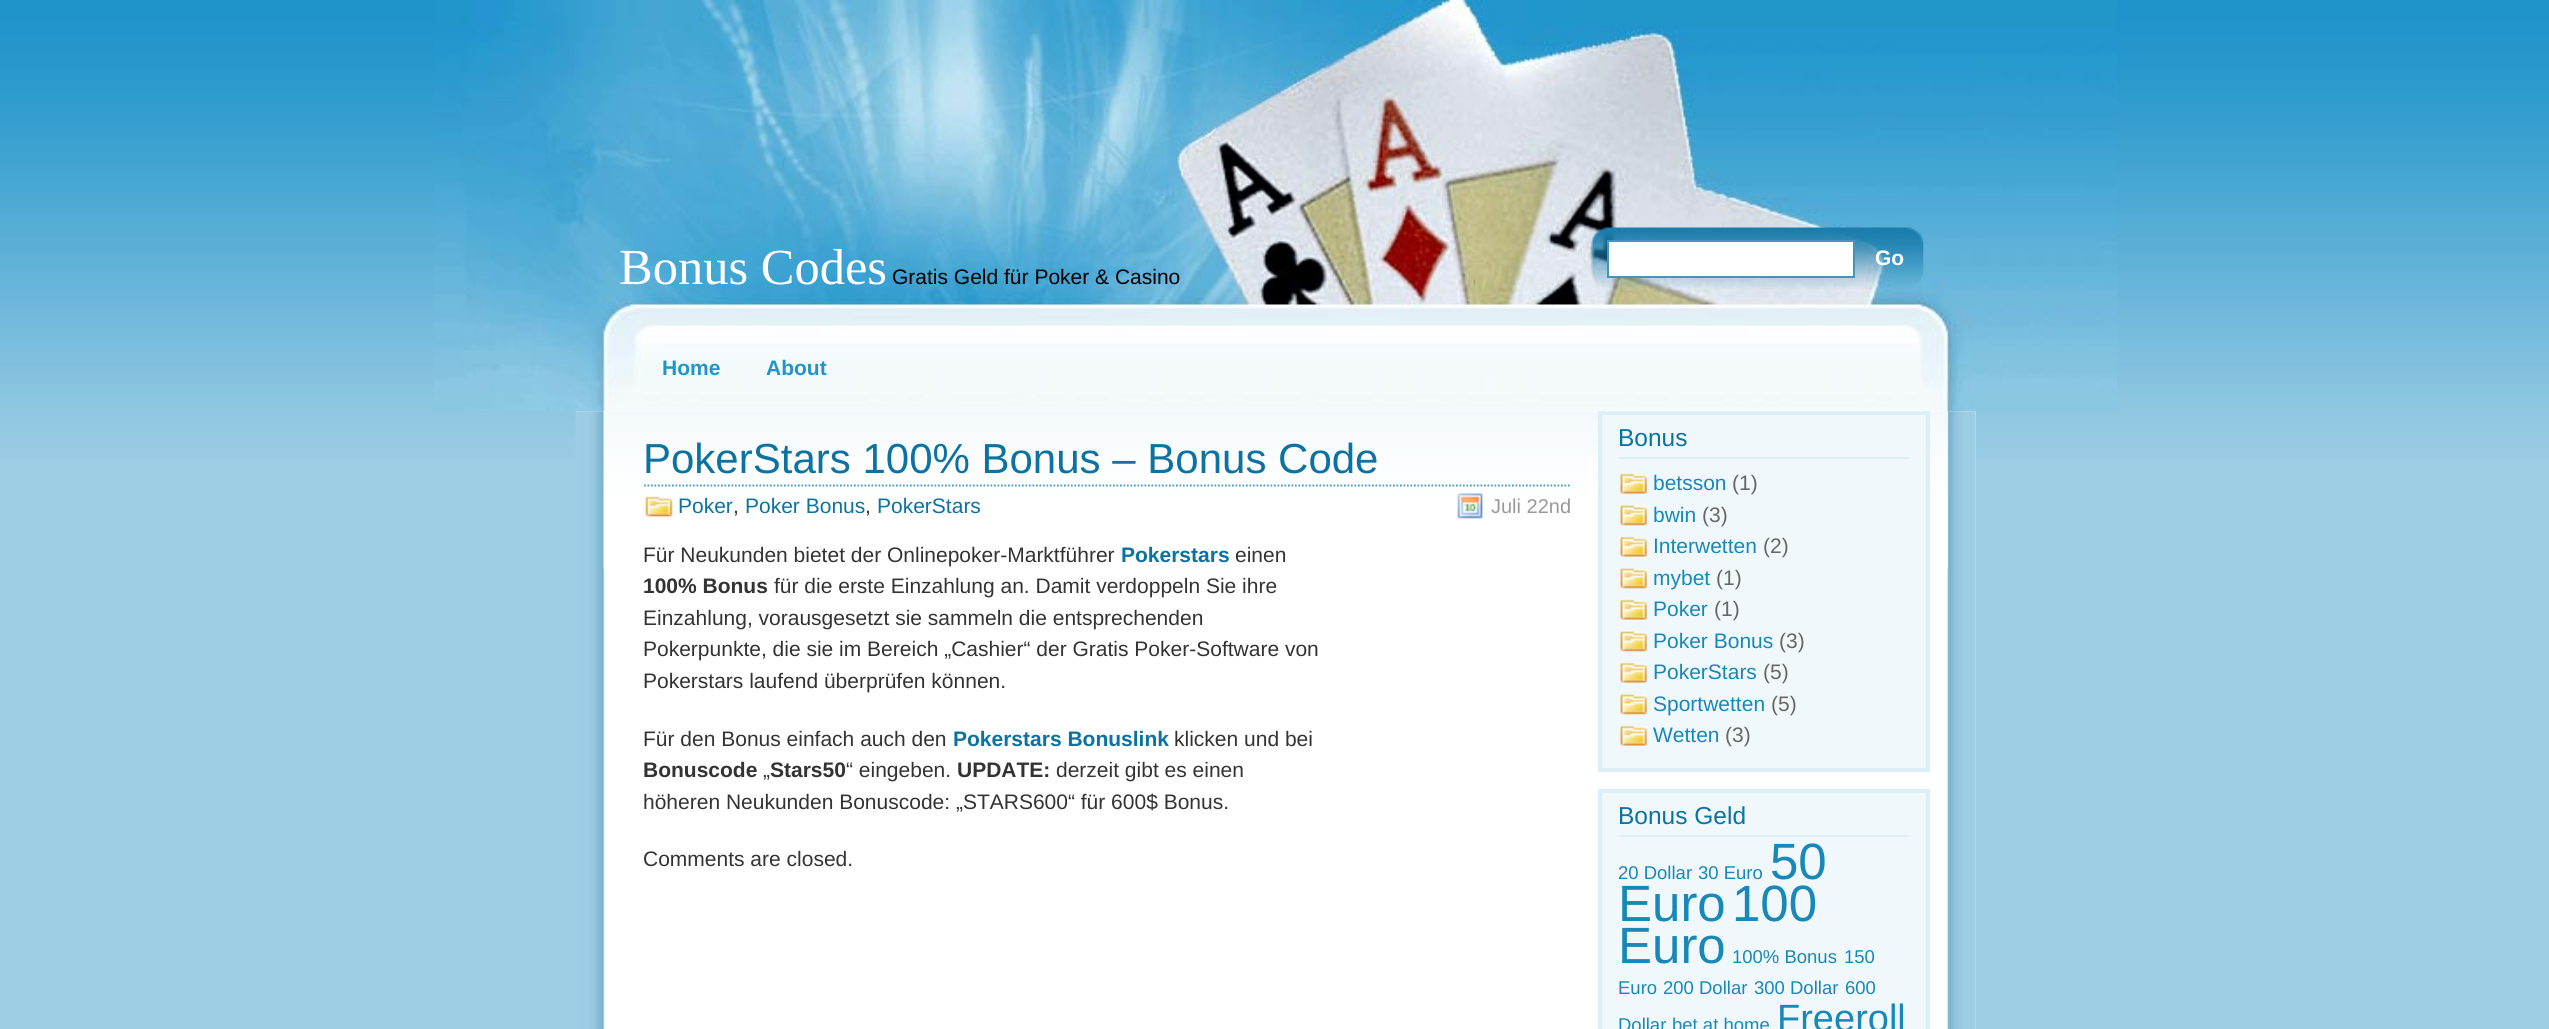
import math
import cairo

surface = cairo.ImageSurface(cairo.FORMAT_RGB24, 2549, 1029)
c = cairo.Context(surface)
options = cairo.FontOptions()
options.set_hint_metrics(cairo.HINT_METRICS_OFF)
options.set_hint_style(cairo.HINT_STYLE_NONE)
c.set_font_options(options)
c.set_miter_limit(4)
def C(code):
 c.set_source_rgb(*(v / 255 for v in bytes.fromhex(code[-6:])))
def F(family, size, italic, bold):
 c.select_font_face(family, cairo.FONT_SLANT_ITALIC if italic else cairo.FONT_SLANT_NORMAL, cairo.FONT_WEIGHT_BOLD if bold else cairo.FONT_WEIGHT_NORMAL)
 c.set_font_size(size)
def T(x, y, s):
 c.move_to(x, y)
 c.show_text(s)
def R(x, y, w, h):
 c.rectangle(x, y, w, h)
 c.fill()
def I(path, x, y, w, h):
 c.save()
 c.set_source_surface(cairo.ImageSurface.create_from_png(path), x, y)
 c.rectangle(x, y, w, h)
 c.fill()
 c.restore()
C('9ecee4')
c.paint()
I('1.png',0,0,2549,458)
C('ffffff')
R(576,411,1400,618)
I('4.png',575,411,1401,618)
I('5.png',603,411,1345,158)
C('f0f8fc')
c.rectangle(1600,413,328,357)
c.fill_preserve()
C('dbeff6')
c.set_line_width(4)
c.stroke()
I('2.png',434,0,1683,412)
F('Liberation Serif',50.5,0,0)
C('ffffff')
T(619,284,'Bonus Codes')
F('Liberation Sans',21,0,0)
C('000000')
T(892,284,'Gratis Geld für Poker & Casino')
I('3.png',1590,227,334,62)
C('ffffff')
c.rectangle(1608,241,246,36)
c.fill_preserve()
C('4395bc')
c.set_line_width(2)
c.stroke()
F('Liberation Sans',21,0,1)
C('ffffff')
T(1875,265,'Go')
C('2195cb')
T(662,375,'Home')
T(766,375,'About')
c.new_path()
c.move_to(644,485.5)
c.line_to(1571.5,485.5)
C('4395bc')
c.set_line_width(1.8)
c.set_dash([1.75,1.75])
c.stroke()
F('Liberation Sans',42,0,0)
C('0c72a2')
T(643,473,'PokerStars 100% Bonus – Bonus Code')
I('6.png',645,496,28,21)
F('Liberation Sans',21,0,0)
T(678,513,'Poker')
C('333333')
T(733,513,',')
C('0c72a2')
T(745,513,'Poker Bonus')
C('333333')
T(865,513,',')
C('0c72a2')
T(877,513,'PokerStars')
I('7.png',1457,493,26,26)
F('Liberation Sans',20,0,0)
C('999999')
T(1491,513,'Juli 22nd')
F('Liberation Sans',21,0,0)
C('333333')
T(643,562,'Für Neukunden bietet der Onlinepoker-Marktführer')
F('Liberation Sans',21,0,1)
C('0c72a2')
T(1121,562,'Pokerstars')
F('Liberation Sans',21,0,0)
C('333333')
T(1235,562,'einen')
F('Liberation Sans',21,0,1)
T(643,593,'100% Bonus')
F('Liberation Sans',21,0,0)
T(774,593,'für die erste Einzahlung an. Damit verdoppeln Sie ihre')
T(643,625,'Einzahlung, vorausgesetzt sie sammeln die entsprechenden')
T(643,656,'Pokerpunkte, die sie im Bereich „Cashier“ der Gratis Poker-Software von')
T(643,688,'Pokerstars laufend überprüfen können.')
T(643,746,'Für den Bonus einfach auch den')
F('Liberation Sans',21,0,1)
C('0c72a2')
T(953,746,'Pokerstars Bonuslink')
F('Liberation Sans',21,0,0)
C('333333')
T(1174,746,'klicken und bei')
F('Liberation Sans',21,0,1)
T(643,777,'Bonuscode')
F('Liberation Sans',21,0,0)
T(763,777,'„')
F('Liberation Sans',21,0,1)
T(770,777,'Stars50')
F('Liberation Sans',21,0,0)
T(846,777,'“ eingeben.')
F('Liberation Sans',21,0,1)
T(957,777,'UPDATE:')
F('Liberation Sans',21,0,0)
T(1056,777,'derzeit gibt es einen')
T(643,809,'höheren Neukunden Bonuscode: „STARS600“ für 600$ Bonus.')
T(643,866,'Comments are closed.')
C('dbeff6')
R(1619,457,290,2)
F('Liberation Sans',24.5,0,0)
C('0c72a2')
T(1618,446,'Bonus')
I('8.png',1620,473,28,21)
F('Liberation Sans',21,0,0)
C('1888b8')
T(1653,490,'betsson')
C('666666')
T(1732,490,'(1)')
I('9.png',1620,505,28,21)
C('1888b8')
T(1653,522,'bwin')
C('666666')
T(1702,522,'(3)')
I('8.png',1620,536,28,21)
C('1888b8')
T(1653,553,'Interwetten')
C('666666')
T(1763,553,'(2)')
I('9.png',1620,568,28,21)
C('1888b8')
T(1653,585,'mybet')
C('666666')
T(1716,585,'(1)')
I('8.png',1620,599,28,21)
C('1888b8')
T(1653,616,'Poker')
C('666666')
T(1714,616,'(1)')
I('9.png',1620,631,28,21)
C('1888b8')
T(1653,648,'Poker Bonus')
C('666666')
T(1779,648,'(3)')
I('8.png',1620,662,28,21)
C('1888b8')
T(1653,679,'PokerStars')
C('666666')
T(1763,679,'(5)')
I('9.png',1620,694,28,21)
C('1888b8')
T(1653,711,'Sportwetten')
C('666666')
T(1771,711,'(5)')
I('8.png',1620,725,28,21)
C('1888b8')
T(1653,742,'Wetten')
C('666666')
T(1725,742,'(3)')
C('f0f8fc')
c.rectangle(1600,791,328,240)
c.fill_preserve()
C('dbeff6')
c.set_line_width(4)
c.set_dash([])
c.stroke()
R(1619,835,290,2)
F('Liberation Sans',24.5,0,0)
C('0c72a2')
T(1618,824,'Bonus Geld')
F('Liberation Sans',18.5,0,0)
C('1888b8')
T(1618,879,'20 Dollar')
T(1698,879,'30 Euro')
F('Liberation Sans',51,0,0)
T(1770,879,'50')
T(1618,921,'Euro')
T(1732,921,'100')
T(1618,963,'Euro')
F('Liberation Sans',18.5,0,0)
T(1732,963,'100% Bonus')
T(1844,963,'150')
T(1618,994,'Euro')
T(1663,994,'200 Dollar')
T(1754,994,'300 Dollar')
T(1845,994,'600')
T(1618,1031,'Dollar')
T(1672,1031,'bet at home')
F('Liberation Sans',38,0,0)
T(1777,1031,'Freeroll')
surface.write_to_png('o.png')
